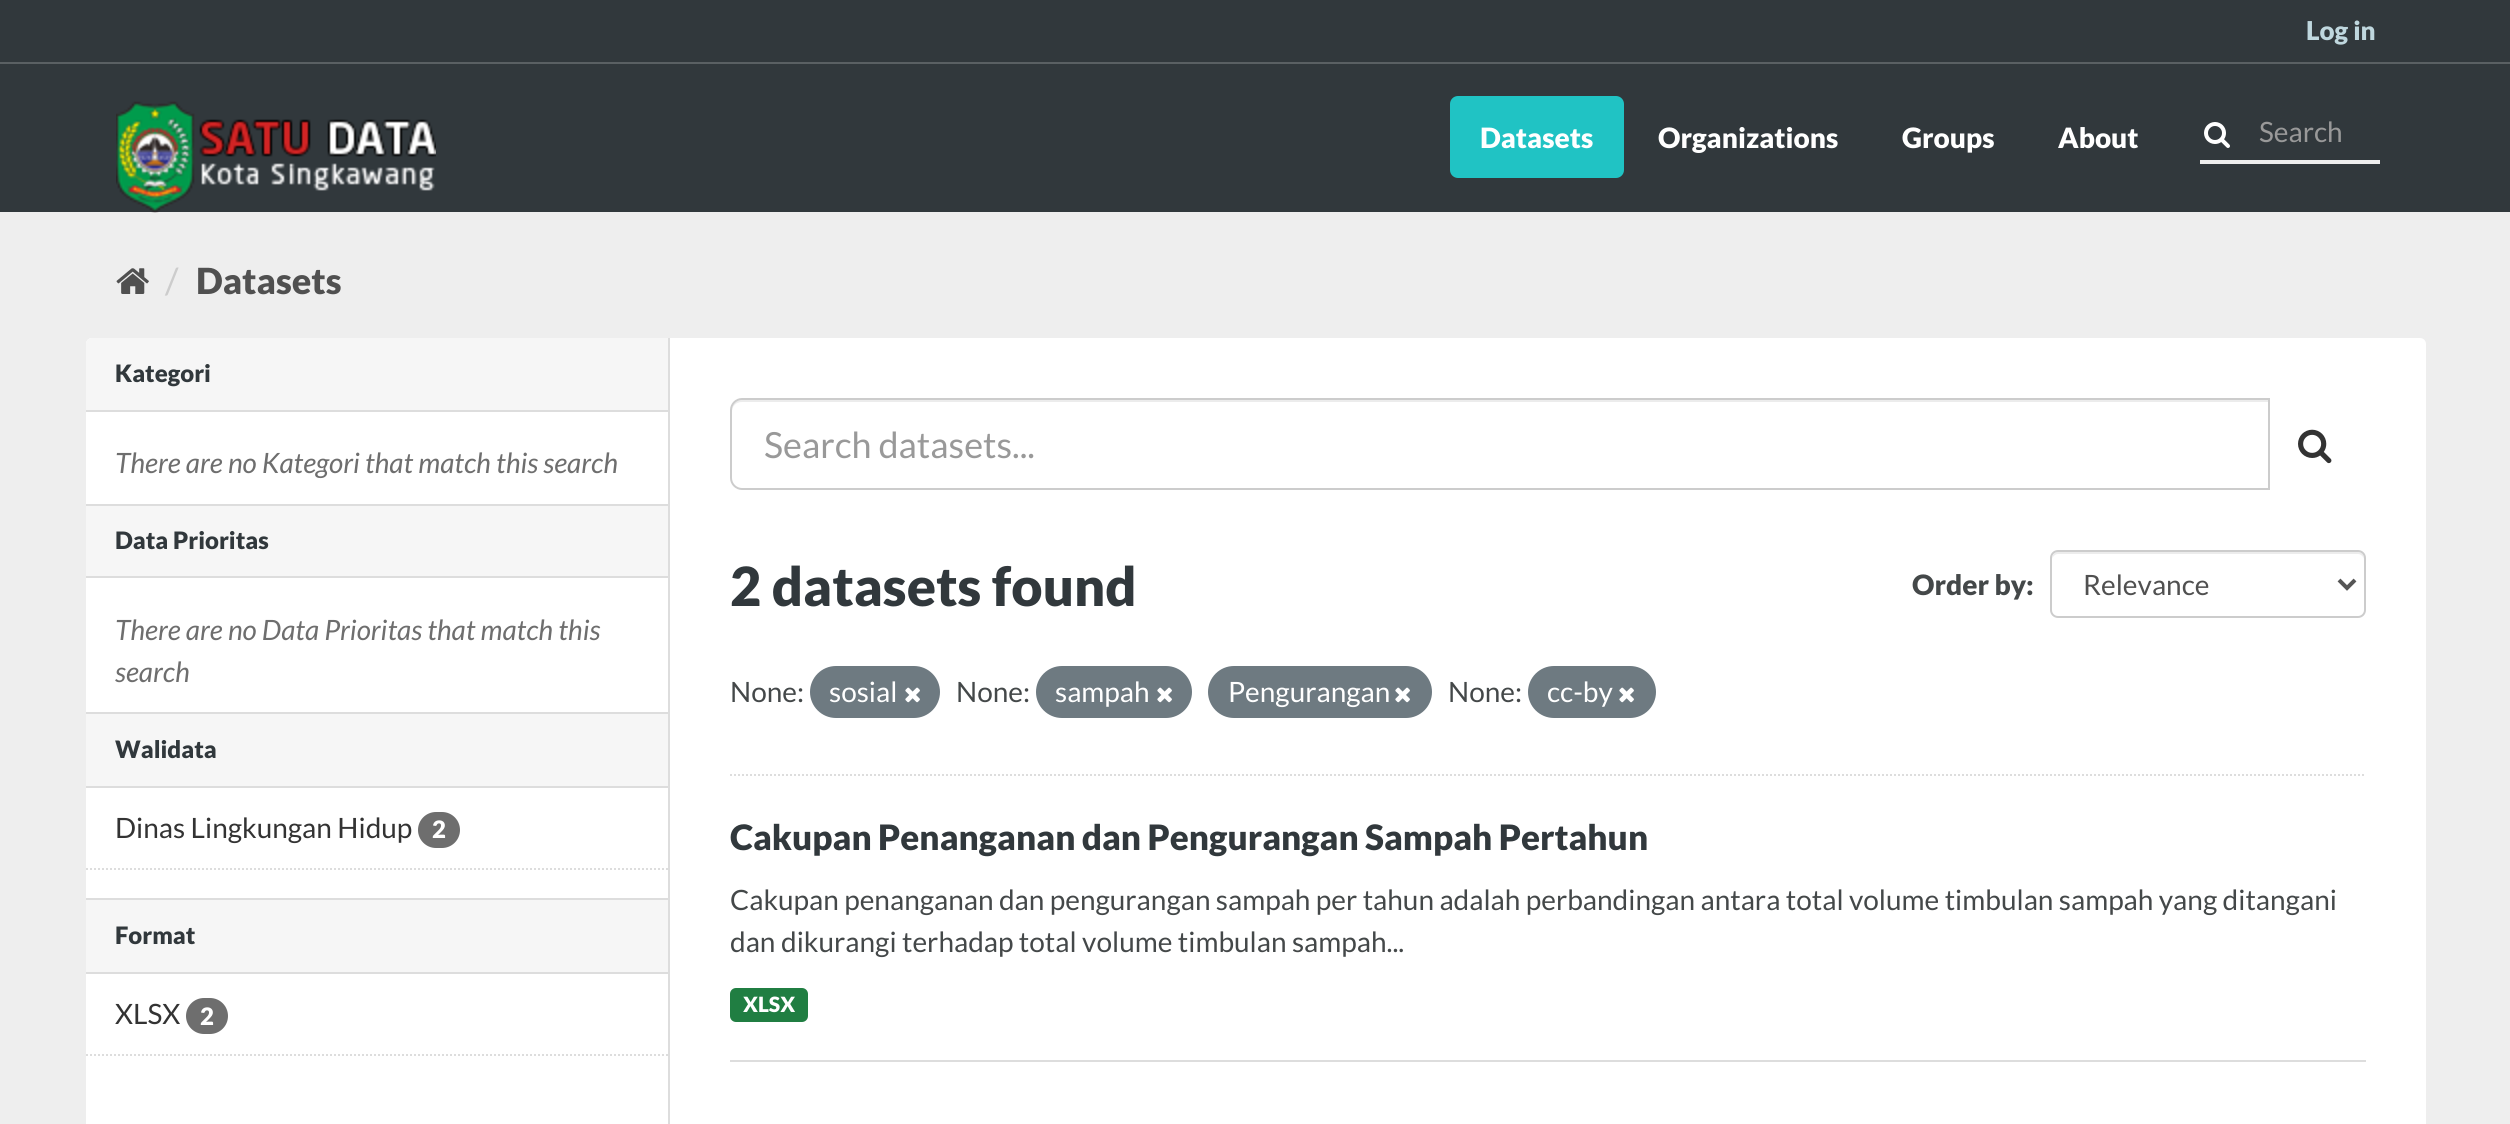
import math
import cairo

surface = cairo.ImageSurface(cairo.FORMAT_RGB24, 2510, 1124)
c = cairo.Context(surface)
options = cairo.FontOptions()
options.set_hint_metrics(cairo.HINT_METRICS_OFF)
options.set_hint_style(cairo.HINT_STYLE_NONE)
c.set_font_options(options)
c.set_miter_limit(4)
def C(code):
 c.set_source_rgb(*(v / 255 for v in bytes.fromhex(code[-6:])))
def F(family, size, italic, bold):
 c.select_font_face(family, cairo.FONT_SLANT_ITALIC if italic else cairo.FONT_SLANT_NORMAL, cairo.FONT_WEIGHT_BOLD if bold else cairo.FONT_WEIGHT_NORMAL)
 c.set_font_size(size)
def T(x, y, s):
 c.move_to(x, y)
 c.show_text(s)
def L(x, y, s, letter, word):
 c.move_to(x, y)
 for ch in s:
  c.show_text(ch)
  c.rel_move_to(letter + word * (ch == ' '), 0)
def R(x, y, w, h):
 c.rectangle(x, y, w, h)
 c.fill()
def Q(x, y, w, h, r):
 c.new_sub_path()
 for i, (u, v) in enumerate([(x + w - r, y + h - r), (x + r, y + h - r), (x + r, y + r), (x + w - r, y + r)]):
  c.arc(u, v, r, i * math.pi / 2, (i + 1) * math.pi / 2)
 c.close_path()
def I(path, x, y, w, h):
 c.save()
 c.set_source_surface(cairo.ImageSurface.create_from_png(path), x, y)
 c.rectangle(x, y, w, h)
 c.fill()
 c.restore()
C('31383c')
c.paint()
C('5a6063')
R(0,62,2510,2)
F('Lato Black',26,0,0)
C('bfd7de')
T(2306,40,'Log in')
C('eeeeee')
R(0,212,2510,912)
I('1.png',116,101,320,112)
C('20c3c4')
Q(1450,96,174,82,8)
c.fill()
F('Lato Black',28,0,0)
C('ffffff')
T(1480,148,'Datasets')
T(1658,148,'Organizations')
T(1902,148,'Groups')
T(2058,148,'About')
C('eeeeee')
R(2200,160,180,4)
I('2.png',2204,122,26,26)
F('Lato',28,0,0)
C('999999')
T(2259,142,'Search')
I('3.png',116,268,33,26)
F('Lato',36,0,0)
C('cccccc')
T(165,294,'/')
F('Lato Black',36,0,0)
C('505050')
T(196,294,'Datasets')
C('ffffff')
Q(86,338,2340,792,6)
c.fill()
C('f6f6f6')
c.new_path()
c.move_to(92,338)
c.line_to(668,338)
c.line_to(668,412)
c.line_to(86,412)
c.line_to(86,344)
c.curve_to(86,340.5,88.5,338,92,338)
c.close_path()
c.fill()
C('dddddd')
R(86,410,582,2)
F('Lato Black',24,0,0)
C('31383c')
T(115,382,'Kategori')
F('Lato',28,1,0)
C('6e6e6e')
L(115,473,'There are no Kategori that match this search',0,-.25)
C('f6f6f6')
R(86,506,582,70)
C('dddddd')
R(86,504,582,2)
R(86,576,582,2)
F('Lato Black',24,0,0)
C('31383c')
T(115,549,'Data Prioritas')
F('Lato',28,1,0)
C('6e6e6e')
L(115,640,'There are no Data Prioritas that match this',0,-.25)
T(115,682,'search')
C('f6f6f6')
R(86,714,582,72)
C('dddddd')
R(86,712,582,2)
R(86,786,582,2)
F('Lato Black',24,0,0)
C('31383c')
T(115,758,'Walidata')
F('Lato',28,0,0)
C('333333')
T(115,838,'Dinas Lingkungan Hidup')
C('6e6e6e')
Q(418,812,42,36,18)
c.fill()
F('Lato Black',24,0,0)
C('ffffff')
T(432,838,'2')
c.new_path()
c.move_to(86,869)
c.line_to(668,869)
C('dddddd')
c.set_dash([2,2])
c.stroke()
C('f6f6f6')
R(86,900,582,72)
C('dddddd')
R(86,898,582,2)
R(86,972,582,2)
C('31383c')
T(115,944,'Format')
F('Lato',28,0,0)
C('333333')
T(115,1024,'XLSX')
C('6e6e6e')
Q(186,998,42,36,18)
c.fill()
F('Lato Black',24,0,0)
C('ffffff')
T(200,1025,'2')
c.new_path()
c.move_to(86,1055)
c.line_to(668,1055)
C('dddddd')
c.stroke()
R(668,338,2,786)
c.new_path()
c.move_to(730,775)
c.line_to(2366,775)
c.stroke()
C('ececec')
c.new_path()
c.move_to(742,402)
c.line_to(2268,402)
c.line_to(2268,400)
c.line_to(742,400)
c.curve_to(736,400,732,404,732,410)
c.line_to(732,412)
c.curve_to(732,406,736,402,742,402)
c.close_path()
c.fill()
c.new_path()
c.move_to(742,399)
c.line_to(2269,399)
c.line_to(2269,489)
c.line_to(742,489)
c.curve_to(736,489,731,484,731,478)
c.line_to(731,410)
c.curve_to(731,404,736,399,742,399)
c.close_path()
C('cccccc')
c.set_dash([])
c.stroke()
F('Lato',36,0,0)
C('999999')
T(764,458,'Search datasets...')
I('4.png',2298,429,34,35)
F('Lato Black',54,0,0)
C('31383c')
T(730,606,'2 datasets found')
F('Lato Black',28,0,0)
C('444849')
T(1912,595,'Order by')
T(2026,595,':')
C('ececec')
c.new_path()
c.move_to(2058,554)
c.line_to(2358,554)
c.curve_to(2361,554,2364,557,2364,560)
c.curve_to(2364,556,2363,552,2358,552)
c.line_to(2057,552)
c.curve_to(2053,553,2052,557,2052,560)
c.curve_to(2052,557,2055,554,2058,554)
c.close_path()
c.fill()
Q(2051,551,314,66,7)
C('cccccc')
c.stroke()
c.new_path()
c.move_to(2339,580)
c.line_to(2347,588)
c.line_to(2355,580)
C('555555')
c.set_line_width(4)
c.stroke()
F('Lato',28,0,0)
C('505050')
T(2083,595,'Relevance')
C('444849')
T(730,702,'None:')
C('6e7a81')
Q(810,666,130,52,26)
c.fill()
C('ffffff')
T(829,702,'sosial')
I('5.png',905,687,15,16)
C('444849')
T(956,702,'None:')
C('6e7a81')
Q(1036,666,156,52,26)
c.fill()
C('ffffff')
T(1055,702,'sampah')
I('5.png',1157,687,15,16)
C('6e7a81')
Q(1208,666,224,52,26)
c.fill()
C('ffffff')
T(1228,702,'Pengurangan')
I('5.png',1395,687,15,16)
C('444849')
T(1448,702,'None:')
C('6e7a81')
Q(1528,666,128,52,26)
c.fill()
C('ffffff')
T(1547,702,'cc-by')
I('5.png',1619,687,15,16)
C('dddddd')
R(730,1060,1636,2)
F('Lato Black',35,0,0)
C('31383c')
L(730,850,'Cakupan Penanganan dan Pengurangan Sampah Pertahun',0,-.5)
F('Lato',28,0,0)
C('444849')
T(730,910,'Cakupan penanganan dan pengurangan sampah per tahun adalah perbandingan antara total volume timbulan sampah yang ditangani')
T(730,952,'dan')
T(781,952,'dikurangi terhadap total volume timbulan sampah...')
C('207e42')
Q(730,988,78,34,6)
c.fill()
F('Lato Black',21,0,0)
C('ffffff')
T(743,1012,'XLSX')
surface.write_to_png('o.png')
